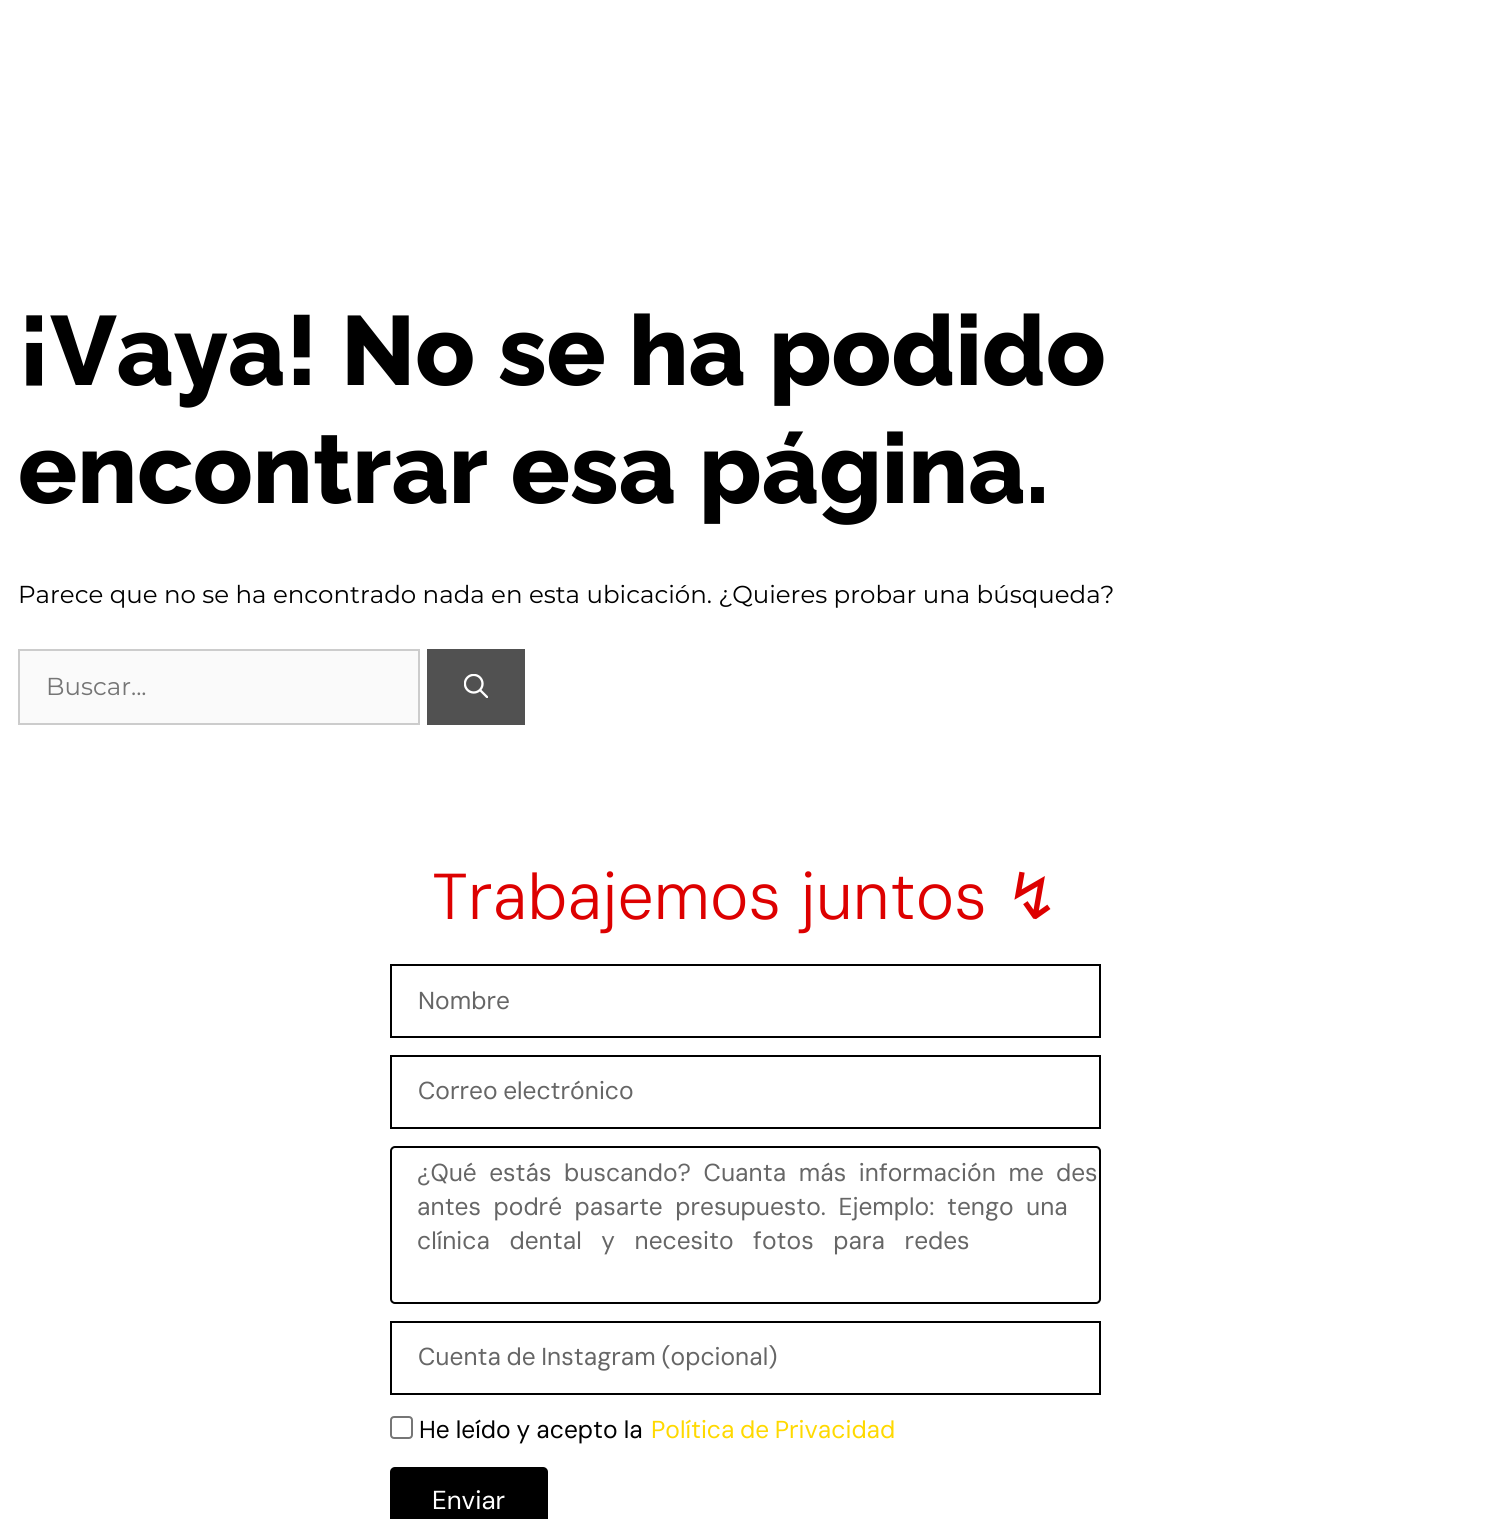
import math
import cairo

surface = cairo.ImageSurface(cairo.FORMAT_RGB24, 1490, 1519)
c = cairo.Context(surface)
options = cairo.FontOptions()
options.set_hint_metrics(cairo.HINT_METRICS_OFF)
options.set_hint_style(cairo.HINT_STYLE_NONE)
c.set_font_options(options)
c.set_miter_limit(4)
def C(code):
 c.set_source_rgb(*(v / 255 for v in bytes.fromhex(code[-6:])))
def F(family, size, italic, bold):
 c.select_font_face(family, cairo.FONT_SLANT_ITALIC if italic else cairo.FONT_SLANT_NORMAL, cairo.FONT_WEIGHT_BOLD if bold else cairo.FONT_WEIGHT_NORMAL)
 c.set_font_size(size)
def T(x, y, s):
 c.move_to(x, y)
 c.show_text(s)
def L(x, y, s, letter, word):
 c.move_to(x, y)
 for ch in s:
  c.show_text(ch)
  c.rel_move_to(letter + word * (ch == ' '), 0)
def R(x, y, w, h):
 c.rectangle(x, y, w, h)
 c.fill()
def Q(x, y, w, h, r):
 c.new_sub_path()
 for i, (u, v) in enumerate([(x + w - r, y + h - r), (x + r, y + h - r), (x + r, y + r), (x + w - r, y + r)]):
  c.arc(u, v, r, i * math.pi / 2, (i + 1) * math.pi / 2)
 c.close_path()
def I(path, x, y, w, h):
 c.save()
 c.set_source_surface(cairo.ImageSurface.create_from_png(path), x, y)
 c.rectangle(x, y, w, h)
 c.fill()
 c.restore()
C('ffffff')
c.paint()
F('Raleway ExtraBold',98,0,0)
C('000000')
T(18,385,'¡Vaya! No se ha podido')
T(18,503,'encontrar esa página.')
F('Montserrat',24.5,0,0)
T(18,603,'Parece que no se ha encontrado nada en esta ubicación. ¿Quieres probar una búsqueda?')
C('fafafa')
c.rectangle(19,650,400,74)
c.fill_preserve()
C('cccccc')
c.stroke()
C('757575')
T(46,695,'Buscar...')
C('515151')
R(427,649,98,76)
I('1.png',464,674,24,24)
F('DM Sans Light',64.75,0,0)
C('dd0000')
L(432,919,'Trabajemos juntos',0,1)
F('DejaVu Sans',64.75,0,0)
T(1005,919,'↯')
c.rectangle(391,965,709,72)
C('000000')
c.stroke()
F('DM Sans',24.5,0,0)
C('666666')
T(418,1009,'Nombre')
c.rectangle(391,1056,709,72)
C('000000')
c.stroke()
C('666666')
L(418,1099,'Correo electrónico',0,-1)
Q(391,1147,709,156,4)
C('000000')
c.stroke()
C('666666')
L(417,1181,'¿Qué estás buscando? Cuanta más información me',0,6)
T(1056,1181,'des')
L(417,1215,'antes podré pasarte presupuesto. Ejemplo: tengo',0,6)
T(1026,1215,'una')
L(417,1249,'clínica dental y necesito fotos para redes',0,13)
c.rectangle(391,1322,709,72)
C('000000')
c.stroke()
C('666666')
L(418,1365,'Cuenta de Instagram (opcional)',0,-1)
Q(391,1417,21,21,3)
C('767676')
c.stroke()
C('000000')
L(419,1438,'He leído y acepto la',0,-.5)
C('ffd900')
L(651,1438,'Política de Privacidad',0,-1)
C('000000')
Q(390,1467,158,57,5)
c.fill()
F('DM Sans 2',26,0,0)
C('ffffff')
T(432,1509,'Enviar')
surface.write_to_png('o.png')
